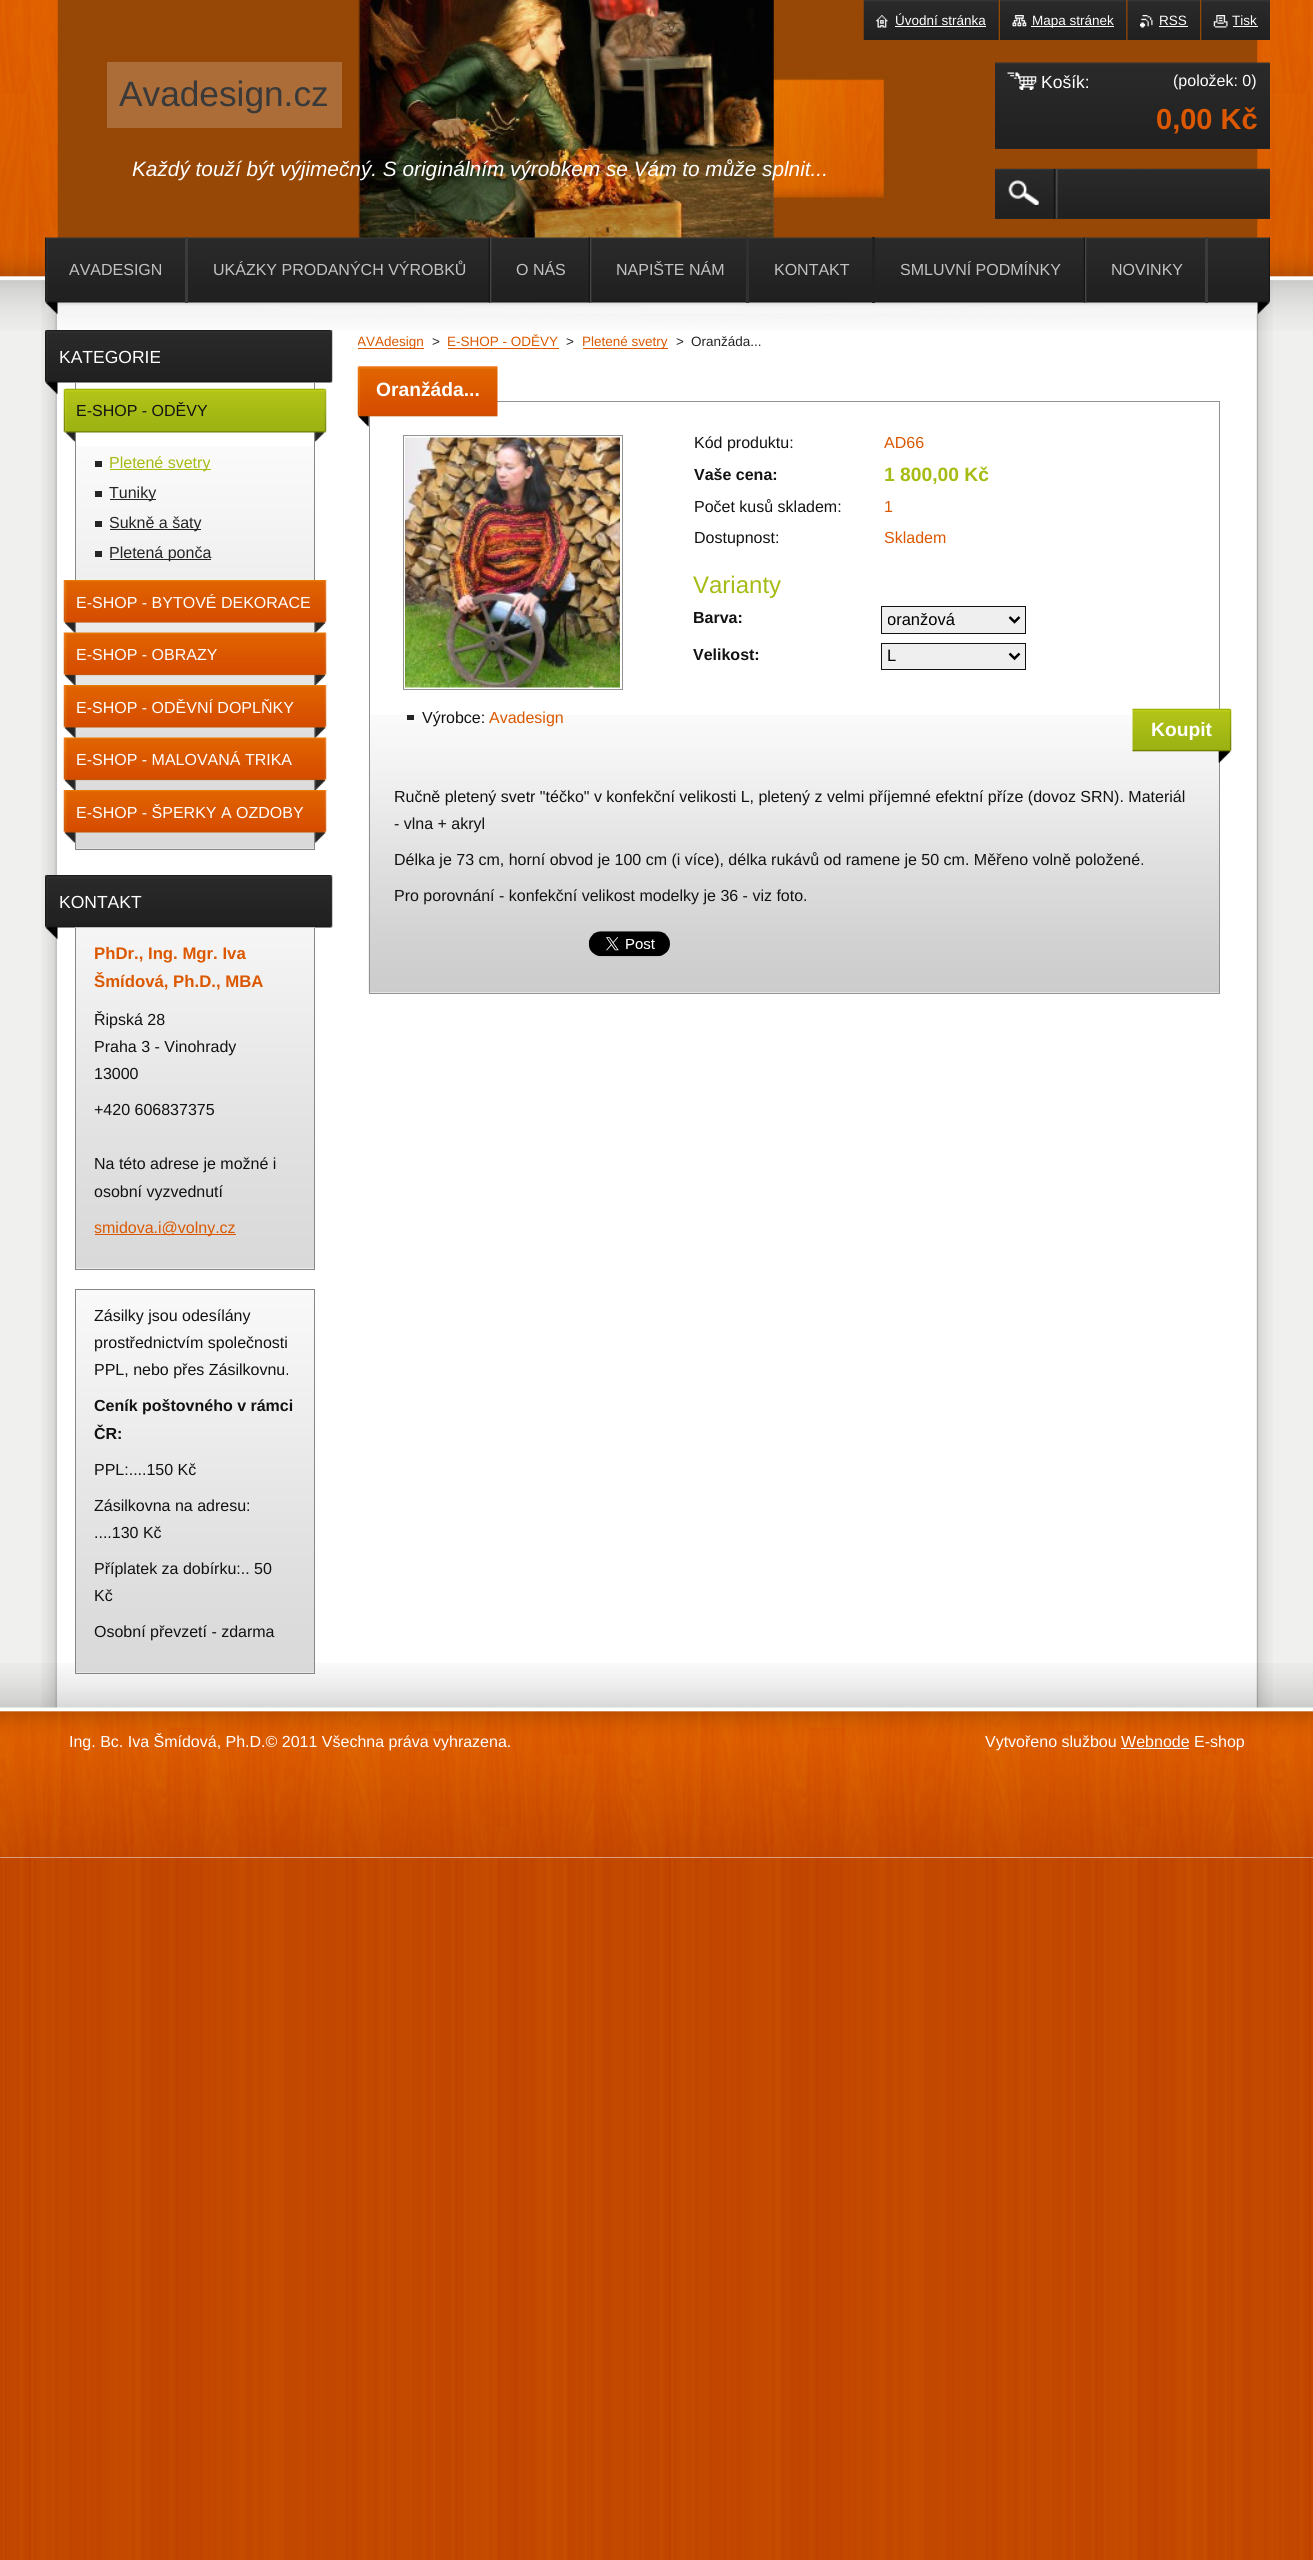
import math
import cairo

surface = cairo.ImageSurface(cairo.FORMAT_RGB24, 1313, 2560)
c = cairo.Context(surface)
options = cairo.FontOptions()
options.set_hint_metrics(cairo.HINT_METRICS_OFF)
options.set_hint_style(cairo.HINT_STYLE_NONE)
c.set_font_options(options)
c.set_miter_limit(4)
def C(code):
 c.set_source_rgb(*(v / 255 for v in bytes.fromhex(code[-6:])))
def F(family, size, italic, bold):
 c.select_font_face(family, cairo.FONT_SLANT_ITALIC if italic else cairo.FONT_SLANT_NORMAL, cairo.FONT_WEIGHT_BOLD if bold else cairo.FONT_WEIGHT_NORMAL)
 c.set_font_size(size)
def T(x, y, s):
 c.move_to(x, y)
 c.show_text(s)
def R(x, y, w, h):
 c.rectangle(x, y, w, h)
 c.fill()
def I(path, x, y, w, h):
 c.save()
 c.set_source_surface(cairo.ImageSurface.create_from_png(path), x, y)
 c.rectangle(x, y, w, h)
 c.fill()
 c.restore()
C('ffffff')
c.paint()
I('1.png',0,1858,1313,702)
C('f0f0ee')
R(0,279,1313,1579)
I('2.png',41,279,1232,1579)
I('3.png',0,0,1313,331)
I('4.png',0,1663,1313,195)
I('13.png',57,0,1201,238)
I('5.png',863,0,136,40)
I('6.png',876,15,12,13)
F('Liberation Sans',13.5,0,0)
C('ffffff')
T(895,25,'Úvodní stránka')
R(895,26,91,1)
I('7.png',1000,0,127,40)
I('8.png',1012,15,15,12)
R(1031,26,83,1)
T(1032,25,'Mapa stránek')
I('9.png',1127,0,73,40)
I('10.png',1140,15,13,13)
T(1159,25,'RSS')
R(1159,26,29,1)
I('11.png',1201,0,69,40)
I('12.png',1213,15,15,13)
T(1232,25,'Tisk')
R(1233,26,25,1)
C('ac6d38')
R(107,62,235,66)
F('Liberation Sans',35.25,0,0)
C('393939')
T(119,106,'Avadesign.cz')
F('Liberation Sans',20.8,1,0)
C('ffffff')
T(132,176,'Každý touží být výjimečný. S originálním výrobkem se Vám to může splnit...')
C('252525')
R(995,148,275,1)
I('14.png',995,62,275,86)
I('15.png',1007,72,30,18)
F('Liberation Sans',17.5,0,0)
C('ffffff')
T(1041,88,'Košík:')
F('Liberation Sans',16,0,0)
T(1173,86,'(položek: 0)')
F('Liberation Sans',29,0,1)
C('db5800')
T(1156,129,'0,00 Kč')
C('252525')
R(995,218,275,1)
I('16.png',995,168,275,50)
I('17.png',1008,180,31,25)
I('18.png',1053,168,5,51)
I('19.png',45,237,1225,77)
C('3b3b3b')
R(185,237,3,66)
F('Liberation Sans',16,0,0)
C('c2c2c2')
T(69,275,'AVADESIGN')
I('20.png',488,237,4,66)
T(213,275,'UKÁZKY PRODANÝCH VÝROBKŮ')
I('21.png',588,237,4,66)
T(516,275,'O NÁS')
C('303030')
R(746,237,3,66)
C('c2c2c2')
T(616,275,'NAPIŠTE NÁM')
C('212121')
R(872,237,3,66)
C('c2c2c2')
T(774,275,'KONTAKT')
I('22.png',1083,237,4,66)
T(900,275,'SMLUVNÍ PODMÍNKY')
C('3b3b3b')
R(1205,237,3,66)
C('c2c2c2')
T(1111,275,'NOVINKY')
C('878787')
R(314,383,1,467)
R(75,849,240,1)
R(75,383,1,467)
I('23.png',45,330,288,64)
F('Liberation Sans',17.5,0,0)
C('ffffff')
T(59,363,'KATEGORIE')
I('24.png',76,446,238,403)
I('25.png',63,388,264,54)
F('Liberation Sans',16,0,0)
C('121212')
T(76,416,'E-SHOP - ODĚVY')
C('252525')
R(95,461,7,6)
C('a7bb15')
R(110,469,101,1)
T(109,468,'Pletené svetry')
C('252525')
R(95,491,7,6)
R(110,499,46,1)
T(109,498,'Tuniky')
R(95,521,7,6)
R(110,529,91,1)
T(109,528,'Sukně a šaty')
R(95,551,7,6)
R(110,559,101,1)
T(109,558,'Pletená ponča')
I('26.png',63,580,264,53)
C('ffffff')
T(76,608,'E-SHOP - BYTOVÉ DEKORACE')
I('27.png',63,632,264,53)
T(76,660,'E-SHOP - OBRAZY')
I('28.png',63,685,264,53)
T(76,713,'E-SHOP - ODĚVNÍ DOPLŇKY')
I('29.png',63,737,264,53)
T(76,765,'E-SHOP - MALOVANÁ TRIKA')
I('30.png',63,790,264,53)
T(76,818,'E-SHOP - ŠPERKY A OZDOBY')
I('31.png',45,875,288,64)
F('Liberation Sans',17.5,0,0)
T(59,908,'KONTAKT')
I('32.png',75,927,240,342)
C('878787')
R(314,928,1,342)
R(75,1269,240,1)
R(75,928,1,342)
F('Liberation Sans',16.75,0,1)
C('db5800')
T(94,959,'PhDr., Ing. Mgr. Iva')
T(94,987,'Šmídová, Ph.D., MBA')
F('Liberation Sans',16,0,0)
C('121212')
T(94,1025,'Řipská 28')
T(94,1052,'Praha 3 - Vinohrady')
T(94,1079,'13000')
T(94,1115,'+420 606837375')
T(94,1169,'Na této adrese je možné i')
T(94,1197,'osobní vyzvednutí')
C('db5800')
R(95,1234,141,1)
T(94,1233,'smidova.i@volny.cz')
I('33.png',76,1290,238,383)
c.rectangle(75.5,1289.5,239,384)
C('878787')
c.set_line_width(1)
c.stroke()
C('121212')
T(94,1321,'Zásilky jsou odesílány')
T(94,1348,'prostřednictvím společnosti')
T(94,1375,'PPL, nebo přes Zásilkovnu.')
F('Liberation Sans',16,0,1)
T(94,1411,'Ceník poštovného v rámci')
T(94,1439,'ČR:')
F('Liberation Sans',16,0,0)
T(94,1475,'PPL:....150 Kč')
T(94,1511,'Zásilkovna na adresu:')
T(94,1538,'....130 Kč')
T(94,1574,'Příplatek za dobírku:.. 50')
T(94,1601,'Kč')
T(94,1637,'Osobní převzetí - zdarma')
C('db5800')
R(358,348,66,1)
c.save()
c.rectangle(358,318,875,713)
c.clip()
F('Liberation Sans',13.5,0,0)
T(357,346,'AVAdesign')
c.restore()
F('Liberation Sans',13.5,0,0)
C('252525')
T(432,346,'>')
C('db5800')
T(447,346,'E-SHOP - ODĚVY')
R(448,348,111,1)
C('252525')
T(566,346,'>')
C('db5800')
R(583,348,85,1)
T(582,346,'Pletené svetry')
C('252525')
T(676,346,'>')
T(691,346,'Oranžáda...')
I('35.png',368,715,851,278)
c.rectangle(369.5,401.5,850,592)
C('929292')
c.stroke()
I('34.png',357,366,141,61)
F('Liberation Sans',19.25,0,1)
C('ffffff')
T(376,396,'Oranžáda...')
c.rectangle(403.5,435.5,219,254)
C('929292')
c.stroke()
I('36.png',405,437,215,251)
C('252525')
R(407,715,7,5)
F('Liberation Sans',16,0,0)
C('121212')
T(422,723,'Výrobce:')
C('db5800')
T(489,723,'Avadesign')
C('121212')
T(694,448,'Kód produktu:')
C('db5800')
T(884,448,'AD66')
F('Liberation Sans',16,0,1)
C('121212')
T(694,480,'Vaše cena:')
F('Liberation Sans',19.25,0,1)
C('a7bb15')
T(884,481,'1 800,00 Kč')
F('Liberation Sans',16,0,0)
C('121212')
T(694,512,'Počet kusů skladem:')
C('db5800')
T(884,512,'1')
C('121212')
T(694,543,'Dostupnost:')
C('db5800')
T(884,543,'Skladem')
F('Liberation Sans',24,0,0)
C('a7bb15')
T(693,593,'Varianty')
F('Liberation Sans',16,0,1)
C('121212')
T(693,623,'Barva:')
C('efefef')
c.rectangle(881.5,606.5,144,27)
c.fill_preserve()
C('121212')
c.stroke()
c.new_path()
c.move_to(1009.5,617)
c.line_to(1014.5,622)
c.line_to(1019.5,617)
C('000000')
c.set_line_width(2.5)
c.stroke()
c.save()
c.rectangle(888,609,117,21)
c.clip()
F('Liberation Sans',16.5,0,0)
T(887,625,'oranžová')
c.restore()
C('121212')
T(693,660,'Velikost:')
C('efefef')
c.rectangle(881.5,643.5,144,26)
c.fill_preserve()
C('121212')
c.set_line_width(1)
c.stroke()
c.new_path()
c.move_to(1009.5,653.5)
c.line_to(1014.5,658.5)
c.line_to(1019.5,653.5)
C('000000')
c.set_line_width(2.5)
c.stroke()
F('Liberation Sans',16.5,0,0)
T(887,661,'L')
I('37.png',1132,708,100,55)
F('Liberation Sans',19.25,0,1)
C('ffffff')
T(1151,736,'Koupit')
F('Liberation Sans',16,0,0)
C('121212')
T(394,802,'Ručně pletený svetr "téčko" v konfekční velikosti L, pletený z velmi příjemné efektní příze (dovoz SRN). Materiál')
T(394,829,'- vlna + akryl')
T(394,865,'Délka je 73 cm, horní obvod je 100 cm (i více), délka rukávů od ramene je 50 cm. Měřeno volně položené.')
T(394,901,'Pro porovnání - konfekční velikost modelky je 36 - viz foto.')
I('38.png',588,931,82,26)
C('ffffff')
T(69,1747,'Ing. Bc. Iva Šmídová, Ph.D.© 2011 Všechna práva vyhrazena.')
T(985,1747,'Vytvořeno službou Webnode E-shop')
R(1121,1748,68,1)
surface.write_to_png('o.png')
